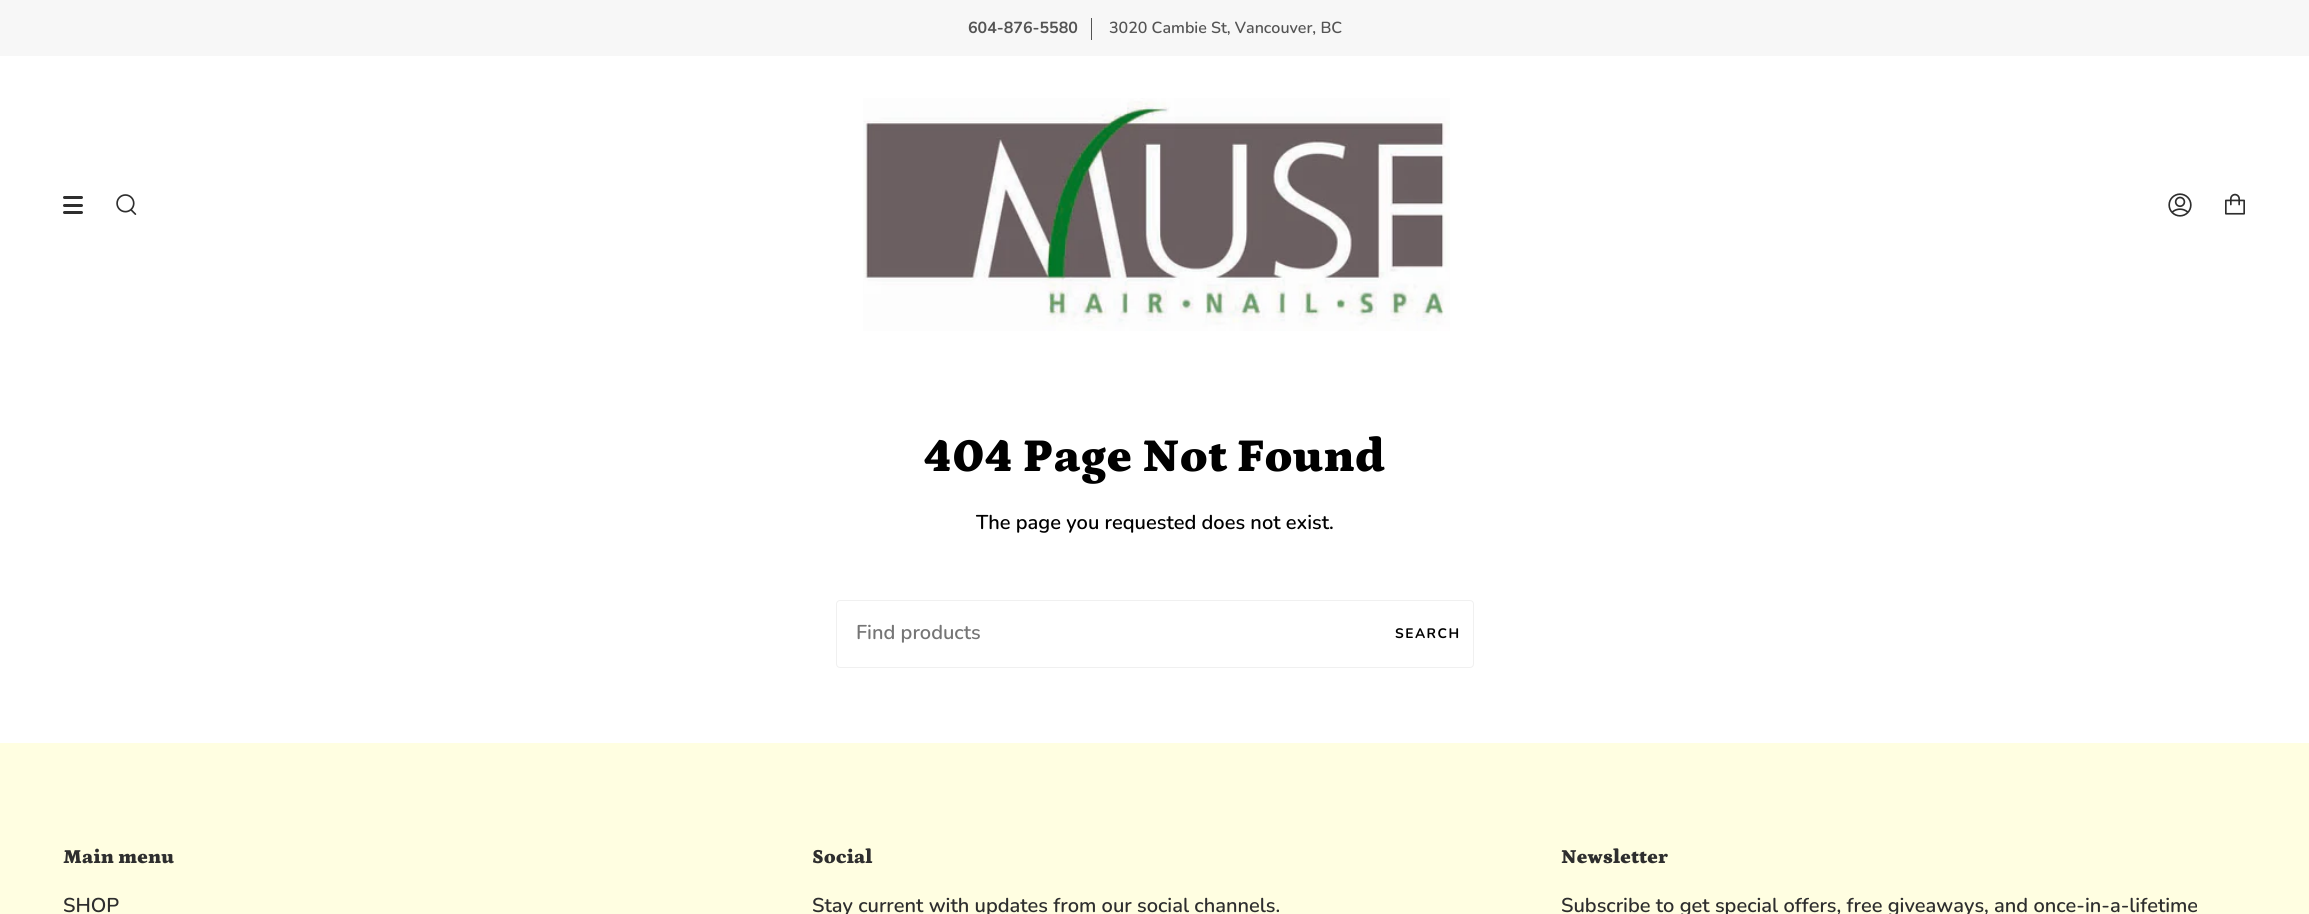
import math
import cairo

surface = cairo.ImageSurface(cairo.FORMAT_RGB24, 2309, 914)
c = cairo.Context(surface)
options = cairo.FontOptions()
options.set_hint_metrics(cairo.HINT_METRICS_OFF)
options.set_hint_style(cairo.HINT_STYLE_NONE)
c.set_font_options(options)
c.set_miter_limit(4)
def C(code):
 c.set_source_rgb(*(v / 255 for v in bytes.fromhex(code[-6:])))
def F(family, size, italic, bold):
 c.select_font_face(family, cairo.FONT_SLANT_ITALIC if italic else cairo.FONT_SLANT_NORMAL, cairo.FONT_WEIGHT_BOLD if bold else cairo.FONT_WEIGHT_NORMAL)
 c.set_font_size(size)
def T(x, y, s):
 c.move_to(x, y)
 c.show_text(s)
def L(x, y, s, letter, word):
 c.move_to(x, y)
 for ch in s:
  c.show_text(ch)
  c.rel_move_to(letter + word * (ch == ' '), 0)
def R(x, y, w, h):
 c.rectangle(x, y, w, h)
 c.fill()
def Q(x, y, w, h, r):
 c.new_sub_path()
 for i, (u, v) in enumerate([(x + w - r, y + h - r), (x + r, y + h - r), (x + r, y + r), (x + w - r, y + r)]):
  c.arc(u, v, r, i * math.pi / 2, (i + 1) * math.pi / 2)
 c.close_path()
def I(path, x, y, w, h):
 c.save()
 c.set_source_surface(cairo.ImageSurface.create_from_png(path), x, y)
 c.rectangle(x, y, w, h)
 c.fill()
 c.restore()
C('ffffff')
c.paint()
C('f7f7f7')
R(0,0,2309,56)
F('Nunito',16,0,1)
C('545454')
T(968,33,'604-876-5580')
R(1091,18,1,22)
F('Nunito SemiBold',16,0,0)
T(1109,33,'3020 Cambie St, Vancouver, BC')
C('2e2e2e')
Q(63,196,20,3,1.5)
c.fill()
Q(63,204,20,3,1.5)
c.fill()
Q(63,211,20,3,1.5)
c.fill()
I('1.png',116,194,21,21)
I('2.png',863,98,587,233)
I('3.png',2168,193,24,24)
I('4.png',2225,193,20,22)
F('Petrona Black',47.5,0,0)
C('000000')
T(924,471,'404 Page Not Found')
F('Nunito SemiBold',20,0,0)
T(976,529,'The page you requested does not exist.')
Q(836.5,600.5,637,67,3.5)
C('f0f0f0')
c.set_line_width(1)
c.stroke()
C('757575')
T(856,639,'Find products')
F('Nunito',13.75,0,1)
C('000000')
L(1395,638,'SEARCH',1.5,0)
C('fffee1')
R(0,743,2309,171)
F('Petrona Black',20,0,0)
C('2e2e2e')
T(63,863,'Main menu')
F('Nunito SemiBold',20,0,0)
T(63,912,'SHOP')
F('Petrona Black',20,0,0)
T(812,863,'Social')
F('Nunito SemiBold',20,0,0)
T(812,912,'Stay current with updates from our social channels.')
F('Petrona Black',20,0,0)
T(1561,863,'Newsletter')
F('Nunito SemiBold',20,0,0)
T(1561,912,'Subscribe to get special offers, free giveaways, and once-in-a-lifetime')
surface.write_to_png('o.png')
